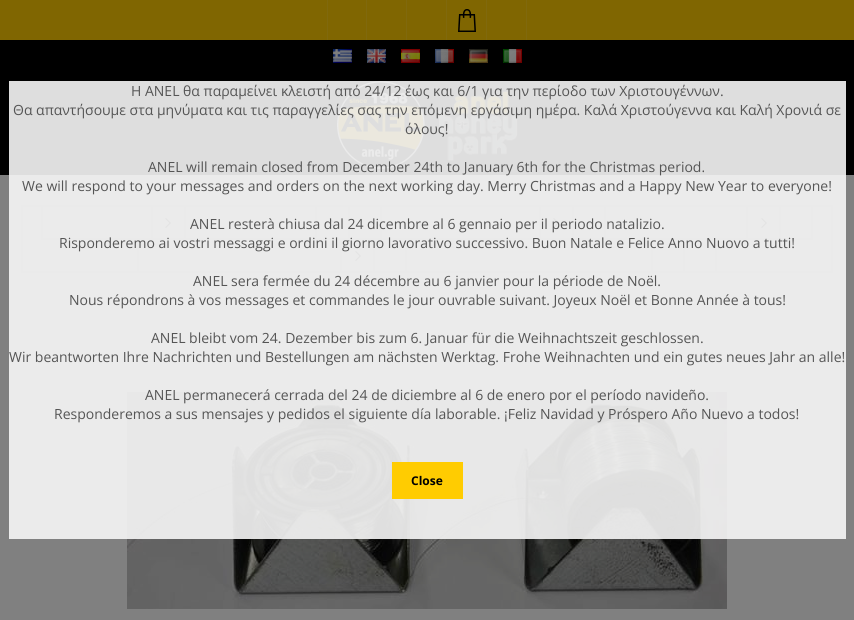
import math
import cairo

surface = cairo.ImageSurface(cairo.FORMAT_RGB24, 854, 620)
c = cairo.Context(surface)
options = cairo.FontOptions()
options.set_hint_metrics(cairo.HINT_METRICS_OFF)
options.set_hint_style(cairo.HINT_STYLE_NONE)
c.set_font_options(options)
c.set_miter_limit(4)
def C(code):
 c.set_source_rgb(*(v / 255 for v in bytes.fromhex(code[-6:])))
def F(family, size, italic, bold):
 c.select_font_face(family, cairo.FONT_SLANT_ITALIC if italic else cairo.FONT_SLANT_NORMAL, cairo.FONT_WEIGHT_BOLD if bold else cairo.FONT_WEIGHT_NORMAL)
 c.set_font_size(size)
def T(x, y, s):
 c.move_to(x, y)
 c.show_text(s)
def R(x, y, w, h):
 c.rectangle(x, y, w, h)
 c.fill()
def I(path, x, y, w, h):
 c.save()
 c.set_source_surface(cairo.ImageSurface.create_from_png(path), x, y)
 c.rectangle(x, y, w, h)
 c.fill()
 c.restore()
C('808080')
c.paint()
C('806601')
R(0,0,854,40)
C('80690d')
R(366,0,1,40)
R(327,0,1,40)
R(406,0,1,40)
R(446,0,1,40)
I('1.png',458,9,18,23)
R(486,0,1,40)
R(526,0,1,40)
C('000000')
R(0,40,854,135)
I('2.png',333,49,19,14)
I('3.png',367,49,19,14)
I('4.png',401,49,19,14)
I('5.png',435,49,19,14)
I('6.png',469,49,19,14)
I('7.png',503,49,19,14)
I('8.png',337,81,88,88)
I('9.png',438,90,80,72)
C('777777')
R(21,205,812,2)
R(831,205,2,68)
R(21,205,2,68)
c.rectangle(42,206,110,33)
c.stroke()
I('10.png',165,218,6,10)
c.rectangle(152,206,33,33)
c.stroke()
c.rectangle(185,206,131,33)
c.stroke()
I('10.png',329,218,6,10)
c.rectangle(316,206,33,33)
c.stroke()
c.rectangle(349,206,32,33)
c.stroke()
c.rectangle(381,206,159,33)
c.stroke()
I('10.png',553,218,6,10)
c.rectangle(540,206,33,33)
c.stroke()
c.rectangle(573,206,32,33)
c.stroke()
c.rectangle(605,206,142,33)
c.stroke()
I('10.png',761,218,6,10)
c.rectangle(747,206,33,33)
c.stroke()
c.rectangle(780,206,32,33)
c.stroke()
c.rectangle(138,239,203,33)
c.stroke()
I('10.png',355,251,6,10)
c.rectangle(341,239,33,33)
c.stroke()
c.rectangle(374,239,32,33)
c.stroke()
c.rectangle(652,239,32,33)
c.stroke()
c.rectangle(406,239,246,33)
c.stroke()
c.rectangle(684,239,32,33)
c.stroke()
R(23,271,808,2)
I('11.png',127,392,600,217)
c.set_source_rgba(0.965,0.965,0.965,0.9)
R(9,81,837,458)
F('Open Sans',14,0,0)
C('555555')
T(131,96,'Η ΑΝΕL θα παραμείνει κλειστή από 24/12 έως και 6/1 για την περίοδο των Χριστουγέννων.')
T(13,115,'Θα απαντήσουμε στα μηνύματα και τις παραγγελίες σας την επόμενη εργάσιμη ημέρα. Καλά Χριστούγεννα και Καλή Χρονιά σε')
T(405,134,'όλους!')
T(148,172,'ANEL will remain closed from December 24th to January 6th for the Christmas period.')
T(22,191,'We will respond to your messages and orders on the next working day. Merry Christmas and a Happy New Year to everyone!')
T(190,229,'ANEL resterà chiusa dal 24 dicembre al 6 gennaio per il periodo natalizio.')
T(59,248,'Risponderemo ai vostri messaggi e ordini il giorno lavorativo successivo. Buon Natale e Felice Anno Nuovo a tutti!')
T(193,286,'ANEL sera fermée du 24 décembre au 6 janvier pour la période de Noël.')
T(69,305,'Nous répondrons à vos messages et commandes le jour ouvrable suivant. Joyeux Noël et Bonne Année à tous!')
T(151,343,'ANEL bleibt vom 24. Dezember bis zum 6. Januar für die Weihnachtszeit geschlossen.')
T(9,362,'Wir beantworten Ihre Nachrichten und Bestellungen am nächsten Werktag. Frohe Weihnachten und ein gutes neues Jahr an alle!')
T(145,400,'ANEL permanecerá cerrada del 24 de diciembre al 6 de enero por el período navideño.')
T(54,419,'Responderemos a sus mensajes y pedidos el siguiente día laborable. ¡Feliz Navidad y Próspero Año Nuevo a todos!')
C('ffcc01')
R(392,462,71,37)
F('Open Sans',12,0,1)
C('000000')
T(411,485,'Close')
surface.write_to_png('o.png')
